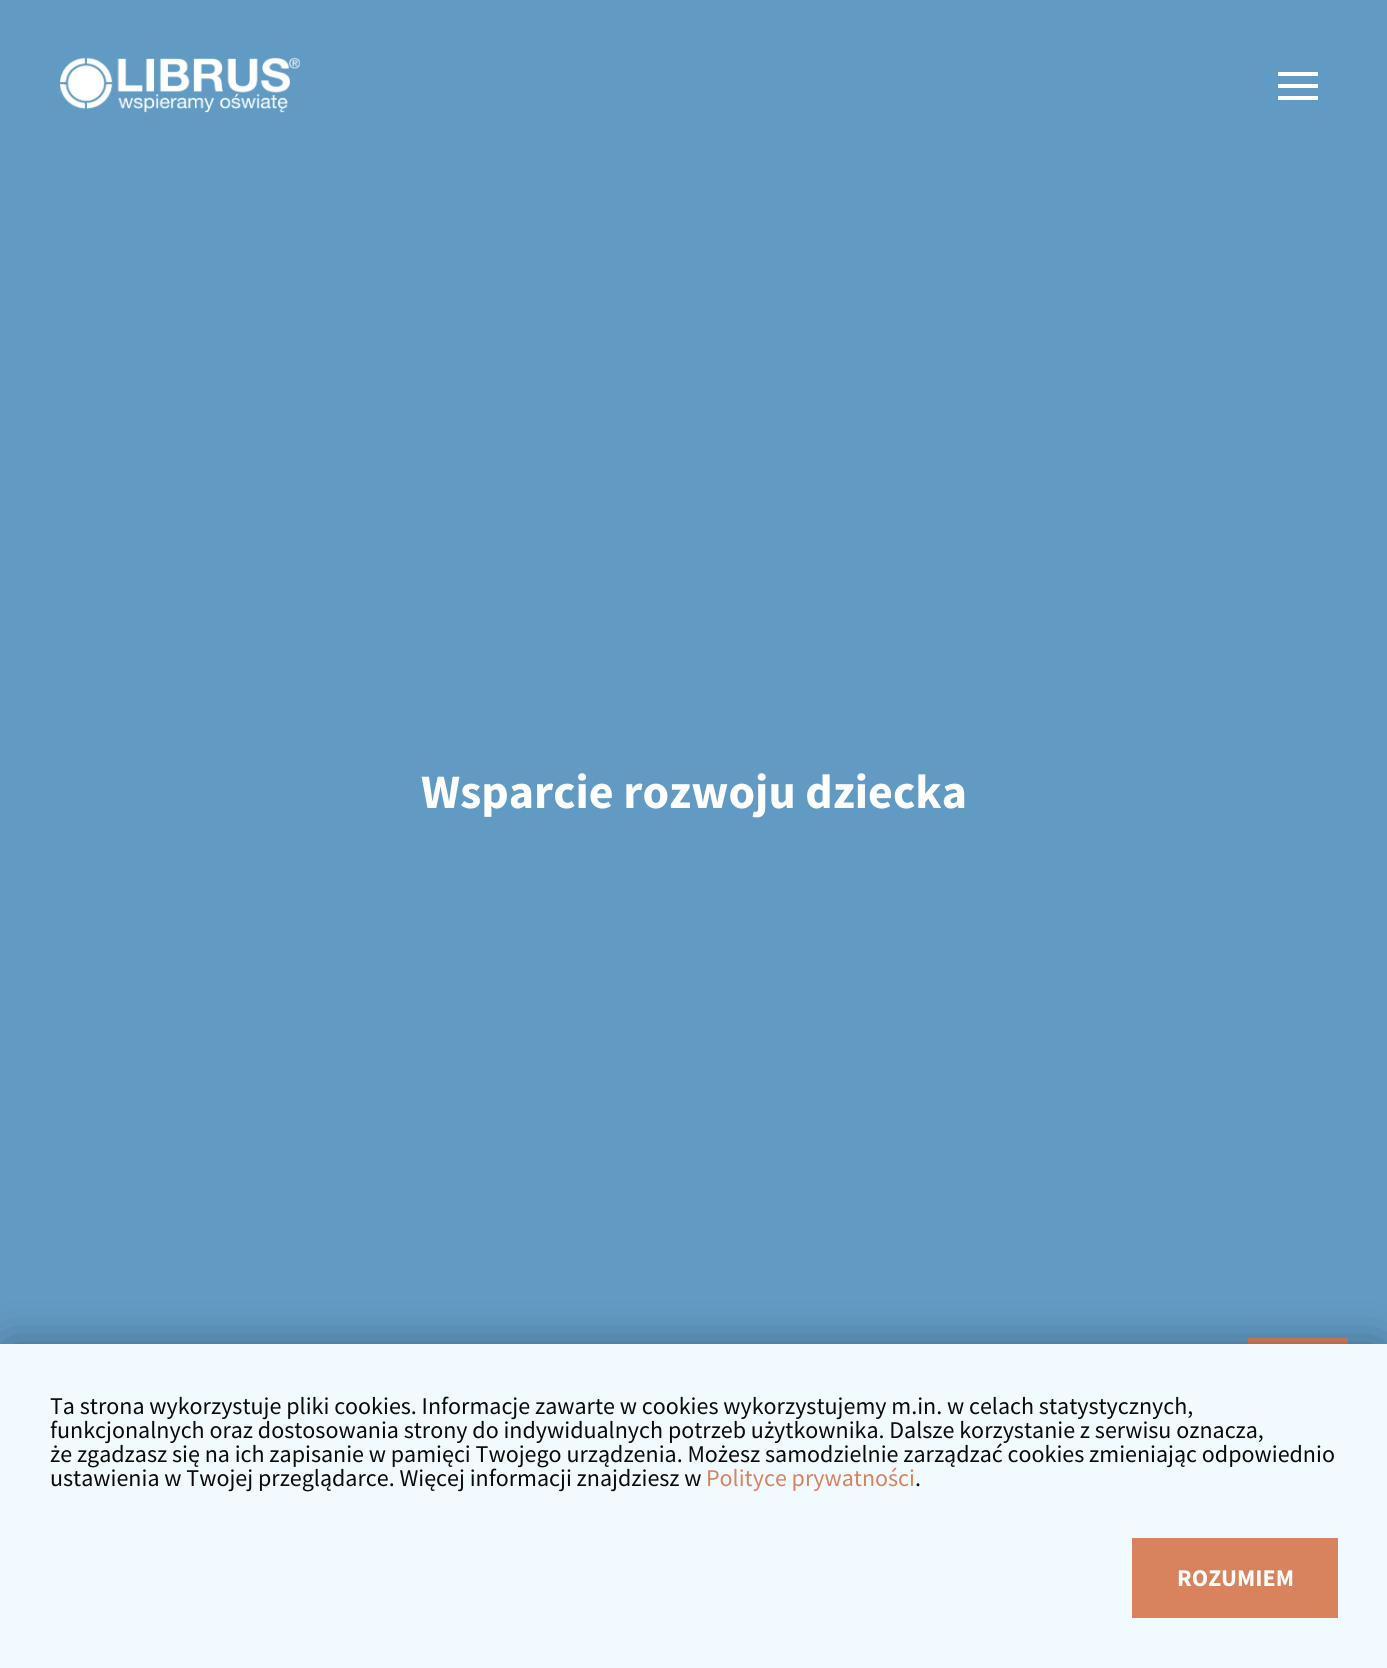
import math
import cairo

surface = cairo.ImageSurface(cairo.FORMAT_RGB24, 1387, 1668)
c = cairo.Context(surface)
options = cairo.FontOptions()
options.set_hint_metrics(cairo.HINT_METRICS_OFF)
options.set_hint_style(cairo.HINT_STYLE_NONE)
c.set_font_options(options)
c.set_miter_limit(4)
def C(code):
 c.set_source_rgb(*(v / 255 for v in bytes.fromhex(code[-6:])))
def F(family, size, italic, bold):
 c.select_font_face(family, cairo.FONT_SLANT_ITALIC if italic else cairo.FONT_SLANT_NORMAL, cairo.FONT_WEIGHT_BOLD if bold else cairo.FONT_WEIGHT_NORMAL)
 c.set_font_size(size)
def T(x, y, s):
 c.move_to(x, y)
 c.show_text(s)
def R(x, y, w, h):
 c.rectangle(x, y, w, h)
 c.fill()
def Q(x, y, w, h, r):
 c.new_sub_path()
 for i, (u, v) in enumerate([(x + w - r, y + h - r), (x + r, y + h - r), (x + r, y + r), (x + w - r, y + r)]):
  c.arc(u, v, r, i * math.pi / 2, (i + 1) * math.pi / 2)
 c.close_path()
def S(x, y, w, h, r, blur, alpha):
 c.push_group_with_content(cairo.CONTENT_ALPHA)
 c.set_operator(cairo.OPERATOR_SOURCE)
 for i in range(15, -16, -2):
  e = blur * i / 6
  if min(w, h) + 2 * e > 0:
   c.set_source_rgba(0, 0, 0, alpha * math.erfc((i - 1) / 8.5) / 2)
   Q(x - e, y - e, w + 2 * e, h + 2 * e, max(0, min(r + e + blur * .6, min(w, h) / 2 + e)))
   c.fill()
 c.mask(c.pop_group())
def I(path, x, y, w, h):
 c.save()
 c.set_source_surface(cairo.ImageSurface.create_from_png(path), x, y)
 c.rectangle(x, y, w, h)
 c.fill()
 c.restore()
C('619bc4')
c.paint()
I('1.png',60,57,240,56)
C('ffffff')
R(1278,72,40,4)
R(1278,84,40,4)
R(1278,96,40,4)
F('Source Sans Pro',48,0,1)
T(421,808,'Wsparcie rozwoju dziecka')
C('d9835e')
R(1248,1338,100,6)
C('000000')
S(10,1354,1368,304,0,25,.45)
C('f1faff')
R(0,1344,1387,324)
F('Source Sans Pro',24,0,0)
C('0a0a0a')
T(50,1414,'Ta strona wykorzystuje pliki cookies. Informacje zawarte w cookies wykorzystujemy m.in. w celach statystycznych,')
T(50,1438,'funkcjonalnych oraz dostosowania strony do indywidualnych potrzeb użytkownika. Dalsze korzystanie z serwisu oznacza,')
T(50,1462,'że zgadzasz się na ich zapisanie w pamięci Twojego urządzenia. Możesz samodzielnie zarządzać cookies zmieniając odpowiednio')
T(50,1486,'ustawienia w Twojej przeglądarce. Więcej informacji znajdziesz w')
C('d9835e')
T(706,1486,'Polityce prywatności')
C('0a0a0a')
T(915,1486,'.')
C('d9835e')
R(1132,1538,206,80)
F('Source Sans Pro',24,0,1)
C('ffffff')
T(1177,1586,'ROZUMIEM')
surface.write_to_png('o.png')
